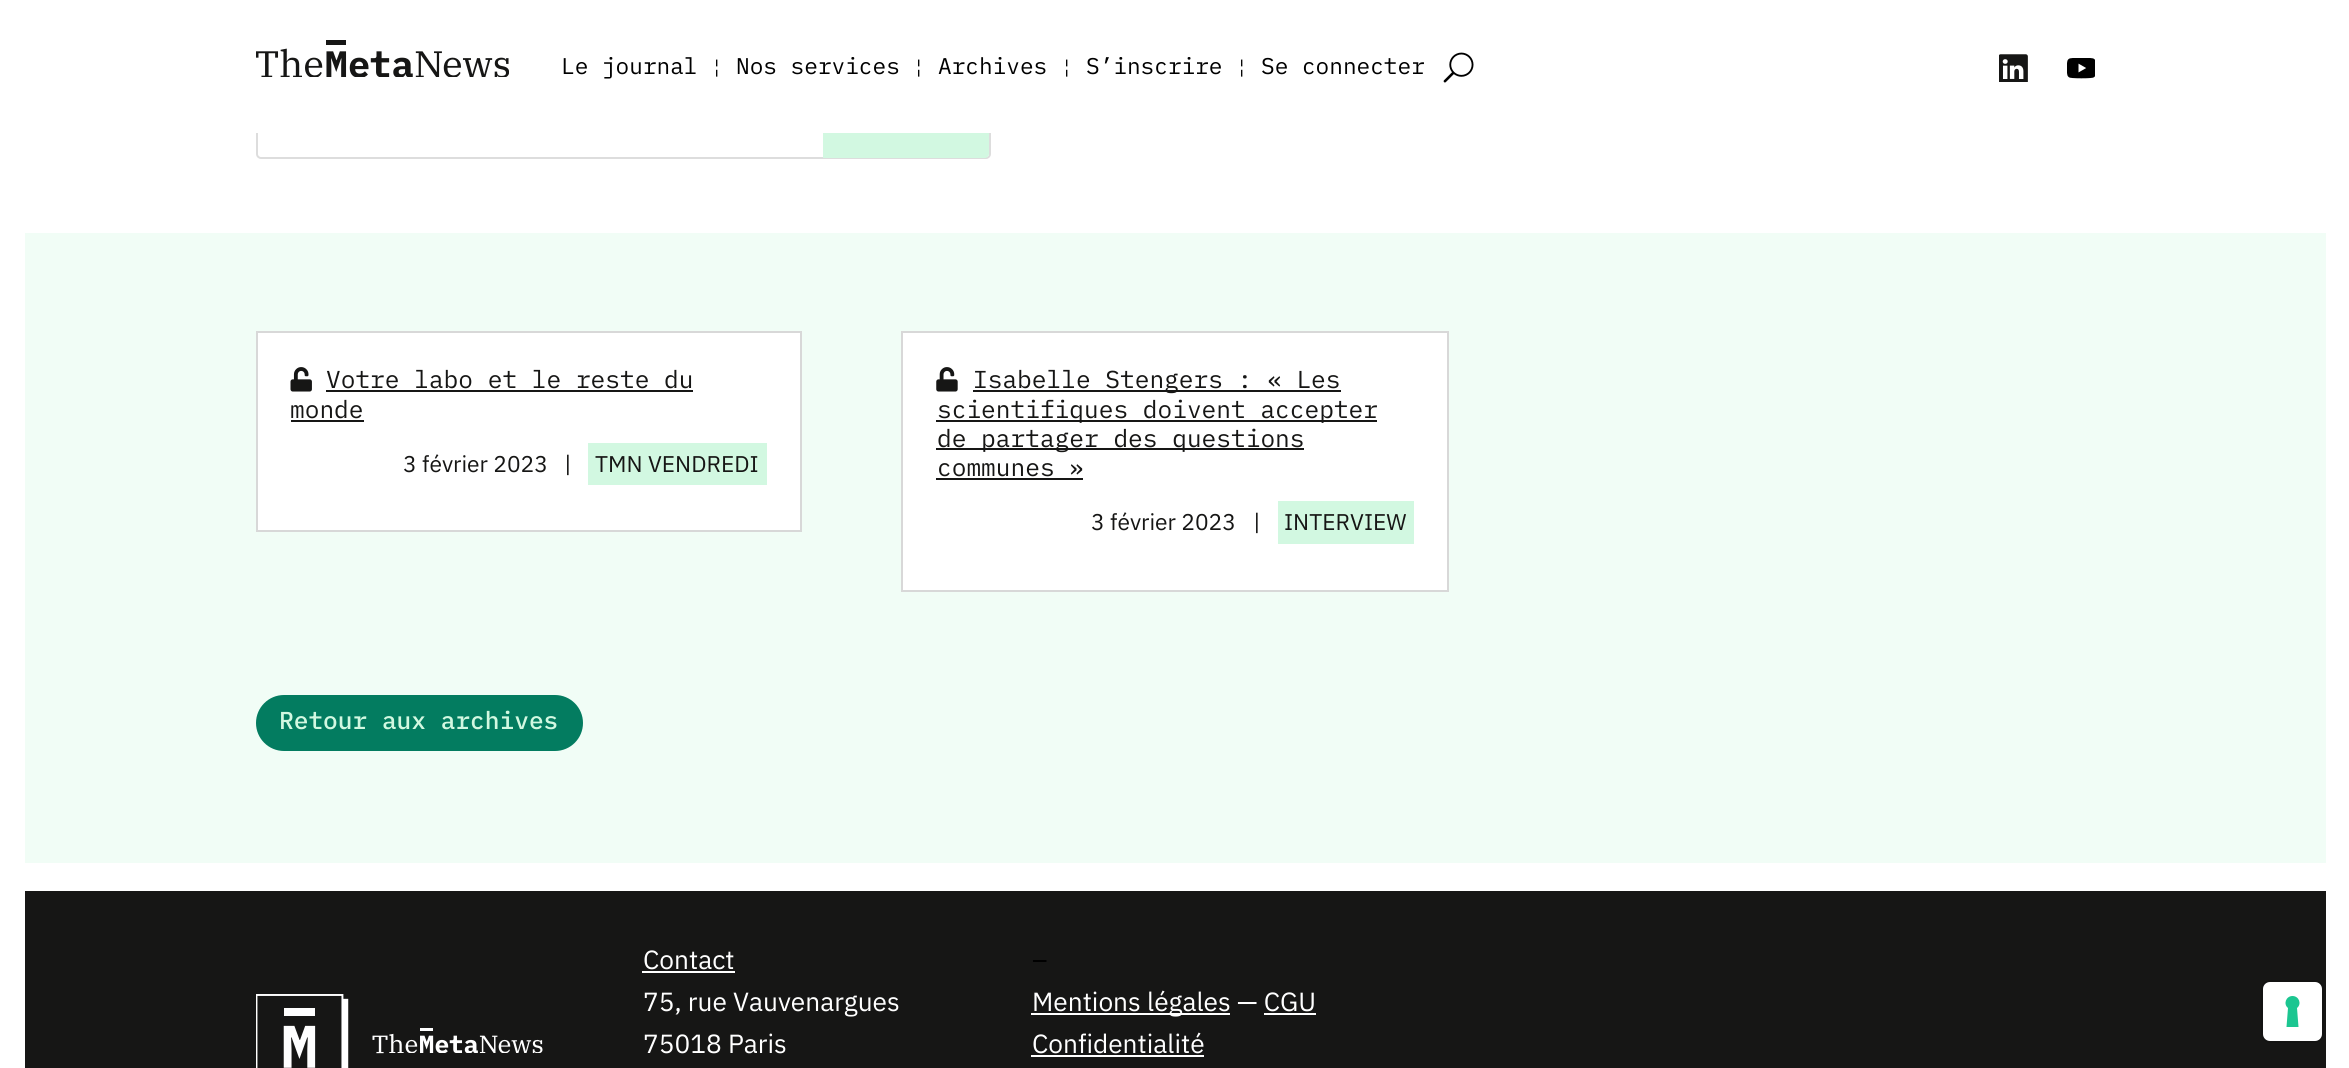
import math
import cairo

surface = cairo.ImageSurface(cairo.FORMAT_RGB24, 2349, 1068)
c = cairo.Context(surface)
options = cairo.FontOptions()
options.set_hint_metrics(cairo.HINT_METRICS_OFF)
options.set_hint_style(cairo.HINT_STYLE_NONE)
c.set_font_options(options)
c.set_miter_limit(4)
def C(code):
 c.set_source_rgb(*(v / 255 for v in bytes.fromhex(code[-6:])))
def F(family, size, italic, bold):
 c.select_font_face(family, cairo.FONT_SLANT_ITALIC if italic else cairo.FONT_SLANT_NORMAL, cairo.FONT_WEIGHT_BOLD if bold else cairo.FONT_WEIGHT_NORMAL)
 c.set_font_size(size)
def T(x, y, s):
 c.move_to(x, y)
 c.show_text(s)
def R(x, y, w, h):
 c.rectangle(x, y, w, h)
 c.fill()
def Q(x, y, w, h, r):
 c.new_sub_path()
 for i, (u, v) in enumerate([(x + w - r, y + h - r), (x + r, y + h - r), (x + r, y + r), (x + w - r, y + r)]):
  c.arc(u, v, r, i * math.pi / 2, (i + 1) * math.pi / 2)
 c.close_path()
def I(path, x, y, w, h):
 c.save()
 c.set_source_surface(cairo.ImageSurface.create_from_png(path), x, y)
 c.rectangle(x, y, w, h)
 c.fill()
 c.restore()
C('ffffff')
c.paint()
Q(257,90,733,68,4)
C('dddddd')
c.stroke()
C('d2f8e1')
c.new_path()
c.move_to(823,91)
c.line_to(985,91)
c.curve_to(987,91,989,93,989,95)
c.line_to(989,154)
c.curve_to(989,156,987,158,985,158)
c.line_to(823,158)
c.close_path()
c.fill()
C('ffffff')
R(256,89,735,44)
I('1.png',256,40,253,37)
F('IBM Plex Mono',22.75,0,0)
C('000000')
T(561,74,'Le journal')
F('IBM Plex Mono',19,0,0)
T(711,74,'¦')
F('IBM Plex Mono',22.75,0,0)
T(736,74,'Nos services')
F('IBM Plex Mono',19,0,0)
T(913,74,'¦')
F('IBM Plex Mono',22.75,0,0)
T(938,74,'Archives')
F('IBM Plex Mono',19,0,0)
T(1061,74,'¦')
F('IBM Plex Mono',22.75,0,0)
T(1086,74,'S’inscrire')
F('IBM Plex Mono',19,0,0)
T(1236,74,'¦')
F('IBM Plex Mono',22.75,0,0)
T(1261,74,'Se connecter')
I('2.png',1443,52,31,31)
I('3.png',1999,54,29,28)
I('4.png',2067,58,28,21)
C('f1fdf6')
R(25,233,2301,630)
C('ffffff')
c.rectangle(257,332,544,199)
c.fill_preserve()
C('d8d8d8')
c.stroke()
I('5.png',290,367,22,25)
F('IBM Plex Mono',24.5,0,0)
C('161615')
T(326,388,'Votre labo et le reste du')
R(326,390,367,2)
T(290,418,'monde')
R(291,420,73,2)
F('IBM Plex Sans',22.75,0,0)
T(403,472,'3 février 2023')
F('IBM Plex Mono',22.75,0,0)
T(561,472,'|')
C('d2f8e1')
R(588,443,179,42)
F('IBM Plex Sans',22.75,0,0)
C('161615')
T(595,472,'TMN VENDREDI')
C('ffffff')
c.rectangle(902,332,546,259)
c.fill_preserve()
C('d8d8d8')
c.stroke()
I('6.png',936,367,22,25)
C('161615')
R(973,390,368,2)
F('IBM Plex Mono',24.5,0,0)
T(973,388,'Isabelle Stengers : « Les')
R(936,420,441,2)
T(937,418,'scientifiques doivent accepter')
R(936,448,368,2)
T(937,447,'de partager des questions')
T(937,476,'communes »')
R(936,478,147,2)
F('IBM Plex Sans',22.75,0,0)
T(1091,530,'3 février 2023')
F('IBM Plex Mono',22.75,0,0)
T(1250,530,'|')
C('d2f8e1')
R(1278,501,136,43)
F('IBM Plex Sans',22.75,0,0)
C('161615')
T(1284,530,'INTERVIEW')
C('037c60')
Q(256,695,327,56,28)
c.fill()
F('IBM Plex Mono Medium',24.5,0,0)
C('d2f8e1')
T(279,729,'Retour aux archives')
C('161615')
R(25,891,2301,177)
I('7.png',256,994,287,74)
F('IBM Plex Sans',26.25,0,0)
C('ffffff')
T(643,969,'Contact')
R(642,971,93,2)
T(643,1011,'75, rue Vauvenargues')
T(643,1053,'75018 Paris')
C('000000')
T(1032,969,'–')
C('ffffff')
R(1031,1013,199,2)
T(1032,1011,'Mentions légales — CGU')
R(1264,1013,52,2)
T(1032,1053,'Confidentialité')
R(1031,1055,173,2)
Q(2262,981,61,61,8)
C('131312')
c.stroke()
C('ffffff')
Q(2263,982,59,59,7)
c.fill()
C('1cc691')
c.set_fill_rule(cairo.FILL_RULE_EVEN_ODD)
c.new_path()
c.move_to(2292.5,996)
c.curve_to(2299,996,2302,1004,2297,1008)
c.line_to(2298.5,1027)
c.line_to(2286.5,1027)
c.line_to(2288,1008)
c.curve_to(2283,1004,2286,996,2292.5,996)
c.close_path()
c.fill()
surface.write_to_png('o.png')
